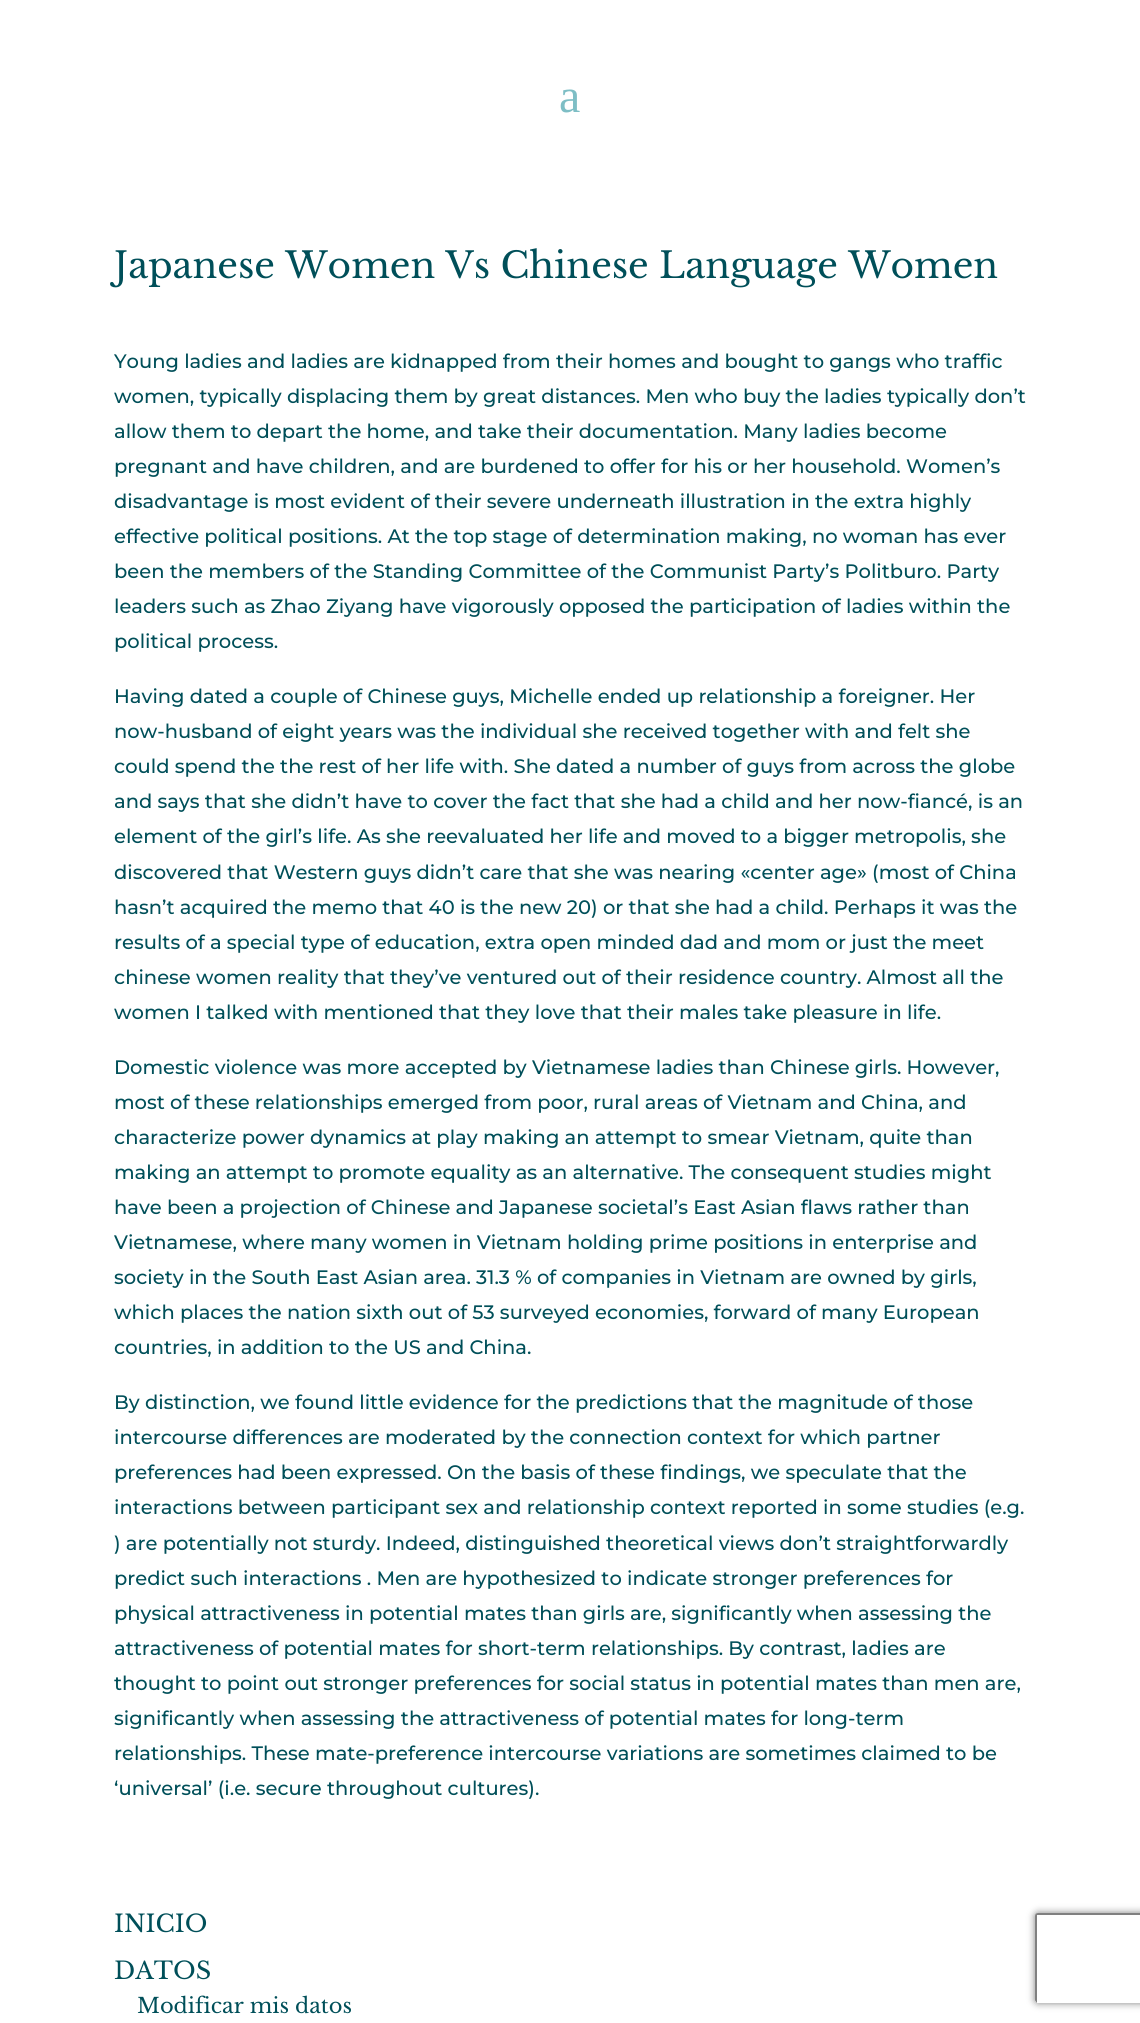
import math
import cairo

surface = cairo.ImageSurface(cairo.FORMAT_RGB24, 1140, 2023)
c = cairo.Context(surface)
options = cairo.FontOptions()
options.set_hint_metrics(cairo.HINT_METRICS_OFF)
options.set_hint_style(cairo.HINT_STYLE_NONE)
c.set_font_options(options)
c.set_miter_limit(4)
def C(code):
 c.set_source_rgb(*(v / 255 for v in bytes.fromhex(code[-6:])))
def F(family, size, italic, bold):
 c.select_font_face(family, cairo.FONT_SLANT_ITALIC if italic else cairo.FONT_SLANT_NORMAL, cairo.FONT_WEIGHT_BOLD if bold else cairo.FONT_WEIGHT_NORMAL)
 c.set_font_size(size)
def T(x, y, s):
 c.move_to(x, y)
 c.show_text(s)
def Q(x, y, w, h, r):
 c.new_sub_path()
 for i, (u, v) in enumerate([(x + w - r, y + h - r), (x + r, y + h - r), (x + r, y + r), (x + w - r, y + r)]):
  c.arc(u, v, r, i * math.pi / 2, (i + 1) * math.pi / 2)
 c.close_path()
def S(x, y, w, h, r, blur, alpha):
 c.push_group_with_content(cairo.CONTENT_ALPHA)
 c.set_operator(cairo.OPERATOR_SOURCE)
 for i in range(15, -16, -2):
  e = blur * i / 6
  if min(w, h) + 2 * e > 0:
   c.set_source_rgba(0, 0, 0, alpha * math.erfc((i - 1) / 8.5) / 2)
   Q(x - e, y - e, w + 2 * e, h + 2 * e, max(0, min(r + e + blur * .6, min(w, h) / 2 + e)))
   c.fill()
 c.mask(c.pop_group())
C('ffffff')
c.paint()
F('Liberation Serif',48,0,0)
C('7ebec5')
T(559,112,'a')
F('Libre Baskerville',36,0,0)
C('004f59')
T(114,278,'Japanese Women Vs Chinese Language Women')
F('Montserrat Thin',19.5,0,0)
T(114,368,'Young ladies and ladies are kidnapped from their homes and bought to gangs who traffic')
T(114,403,'women, typically displacing them by great distances. Men who buy the ladies typically don’t')
T(114,438,'allow them to depart the home, and take their documentation. Many ladies become')
T(114,473,'pregnant and have children, and are burdened to offer for his or her household. Women’s')
T(114,508,'disadvantage is most evident of their severe underneath illustration in the extra highly')
T(114,543,'effective political positions. At the top stage of determination making, no woman has ever')
T(114,578,'been the members of the Standing Committee of the Communist Party’s Politburo. Party')
T(114,613,'leaders such as Zhao Ziyang have vigorously opposed the participation of ladies within the')
T(114,648,'political process.')
T(114,703,'Having dated a couple of Chinese guys, Michelle ended up relationship a foreigner. Her')
T(114,738,'now-husband of eight years was the individual she received together with and felt she')
T(114,773,'could spend the the rest of her life with. She dated a number of guys from across the globe')
T(114,808,'and says that she didn’t have to cover the fact that she had a child and her now-fiancé, is an')
T(114,843,'element of the girl’s life. As she reevaluated her life and moved to a bigger metropolis, she')
T(114,879,'discovered that Western guys didn’t care that she was nearing «center age» (most of China')
T(114,914,'hasn’t acquired the memo that 40 is the new 20) or that she had a child. Perhaps it was the')
T(114,949,'results of a special type of education, extra open minded dad and mom or just the meet')
T(114,984,'chinese women reality that they’ve ventured out of their residence country. Almost all the')
T(114,1019,'women I talked with mentioned that they love that their males take pleasure in life.')
T(114,1074,'Domestic violence was more accepted by Vietnamese ladies than Chinese girls. However,')
T(114,1109,'most of these relationships emerged from poor, rural areas of Vietnam and China, and')
T(114,1144,'characterize power dynamics at play making an attempt to smear Vietnam, quite than')
T(114,1179,'making an attempt to promote equality as an alternative. The consequent studies might')
T(114,1214,'have been a projection of Chinese and Japanese societal’s East Asian flaws rather than')
T(114,1249,'Vietnamese, where many women in Vietnam holding prime positions in enterprise and')
T(114,1284,'society in the South East Asian area. 31.3 % of companies in Vietnam are owned by girls,')
T(114,1319,'which places the nation sixth out of 53 surveyed economies, forward of many European')
T(114,1354,'countries, in addition to the US and China.')
T(114,1409,'By distinction, we found little evidence for the predictions that the magnitude of those')
T(114,1444,'intercourse differences are moderated by the connection context for which partner')
T(114,1479,'preferences had been expressed. On the basis of these findings, we speculate that the')
T(114,1514,'interactions between participant sex and relationship context reported in some studies (e.g.')
T(114,1550,') are potentially not sturdy. Indeed, distinguished theoretical views don’t straightforwardly')
T(114,1585,'predict such interactions . Men are hypothesized to indicate stronger preferences for')
T(114,1620,'physical attractiveness in potential mates than girls are, significantly when assessing the')
T(114,1655,'attractiveness of potential mates for short-term relationships. By contrast, ladies are')
T(114,1690,'thought to point out stronger preferences for social status in potential mates than men are,')
T(114,1725,'significantly when assessing the attractiveness of potential mates for long-term')
T(114,1760,'relationships. These mate-preference intercourse variations are sometimes claimed to be')
T(114,1795,'‘universal’ (i.e. secure throughout cultures).')
F('Libre Baskerville',24,0,0)
T(114,1932,'INICIO')
T(114,1979,'DATOS')
F('Libre Baskerville',21,0,0)
T(137,2013,'Modificar mis datos')
c.save()
c.set_fill_rule(cairo.FILL_RULE_EVEN_ODD)
c.new_path()
c.move_to(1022,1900)
c.line_to(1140,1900)
c.line_to(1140,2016)
c.line_to(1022,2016)
c.close_path()
c.move_to(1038,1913)
c.line_to(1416,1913)
c.curve_to(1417.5,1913,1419,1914.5,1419,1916)
c.line_to(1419,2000)
c.curve_to(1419,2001.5,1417.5,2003,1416,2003)
c.line_to(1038,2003)
c.curve_to(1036.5,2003,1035,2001.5,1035,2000)
c.line_to(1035,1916)
c.curve_to(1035,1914.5,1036.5,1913,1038,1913)
c.close_path()
c.clip()
C('808080')
S(1035,1913,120,90,3,4,1)
c.restore()
C('808080')
c.new_path()
c.move_to(1037,1915)
c.line_to(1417,1915)
c.line_to(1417,2003)
c.curve_to(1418,2002,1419,2001,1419,2000)
c.line_to(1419,1916)
c.curve_to(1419,1914,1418,1913,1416,1913)
c.line_to(1038,1913)
c.curve_to(1036,1913,1035,1914,1035,1916)
c.line_to(1035,2000)
c.curve_to(1035,2001,1036,2002,1037,2003)
c.close_path()
c.fill()
surface.write_to_png('o.png')
